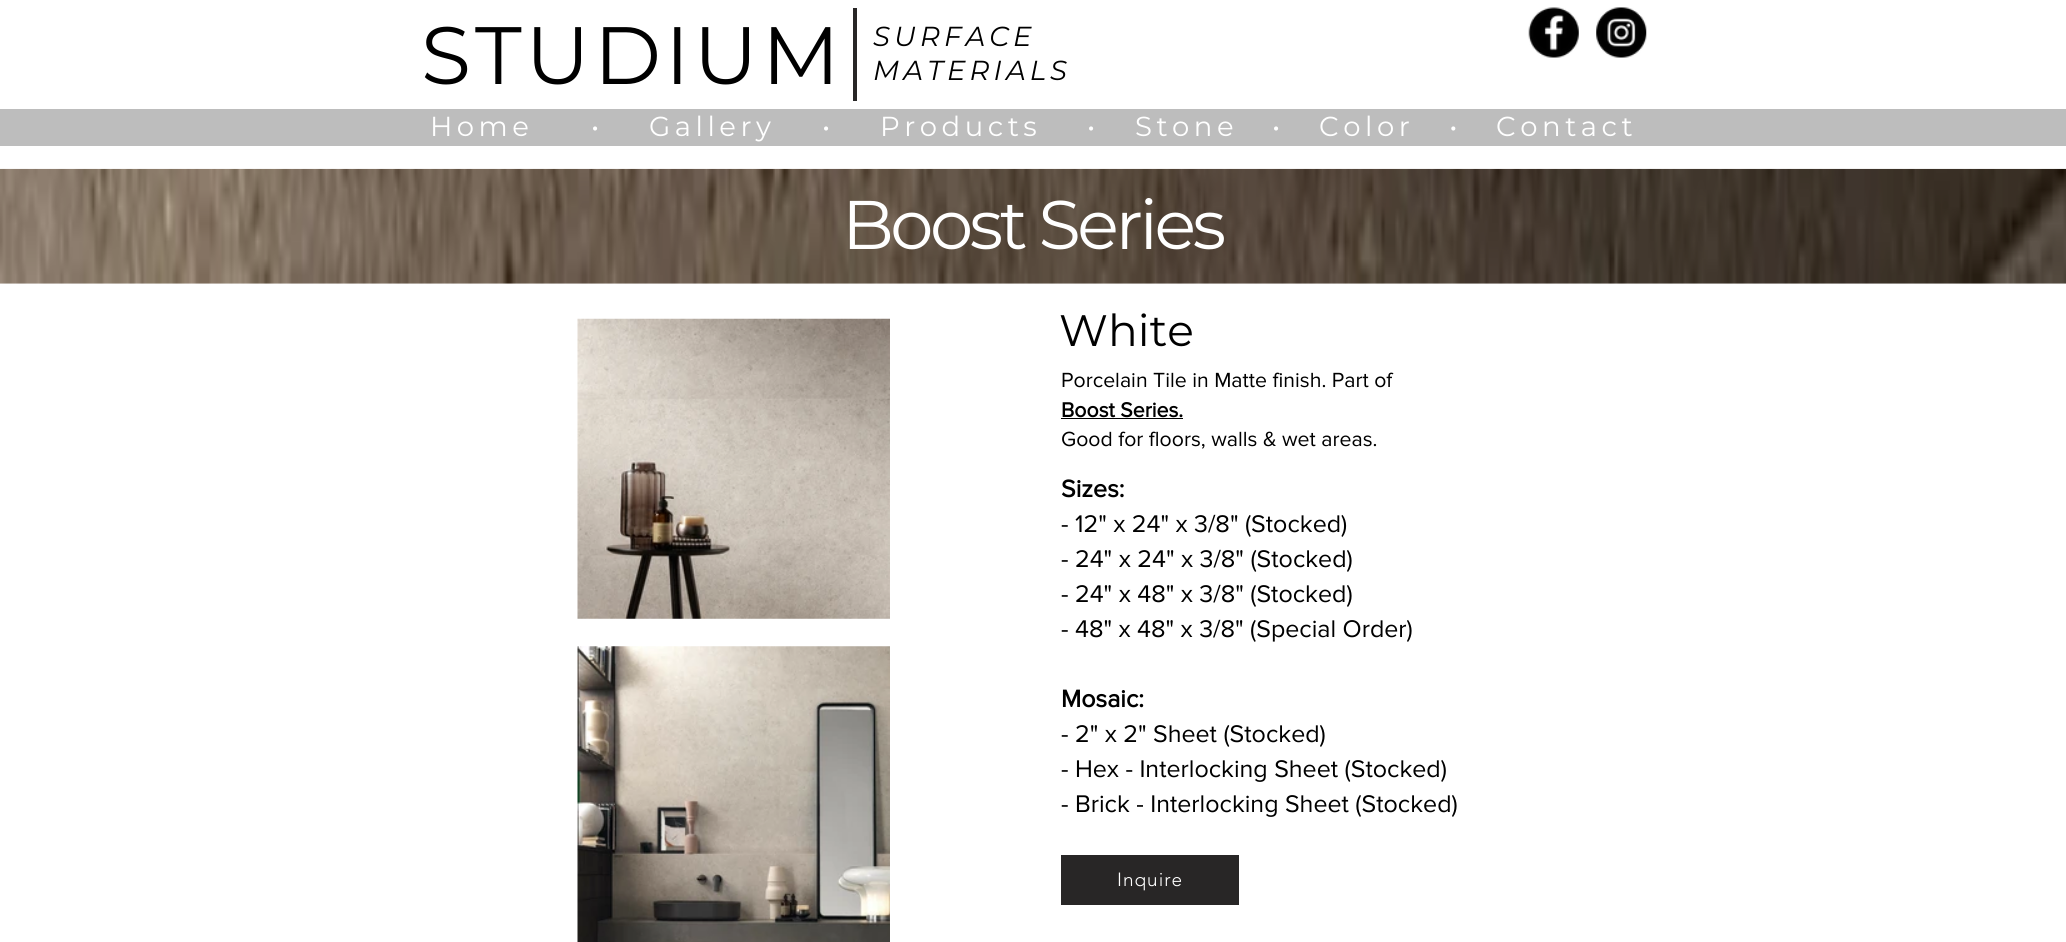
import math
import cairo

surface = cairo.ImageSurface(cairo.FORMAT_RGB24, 2066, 942)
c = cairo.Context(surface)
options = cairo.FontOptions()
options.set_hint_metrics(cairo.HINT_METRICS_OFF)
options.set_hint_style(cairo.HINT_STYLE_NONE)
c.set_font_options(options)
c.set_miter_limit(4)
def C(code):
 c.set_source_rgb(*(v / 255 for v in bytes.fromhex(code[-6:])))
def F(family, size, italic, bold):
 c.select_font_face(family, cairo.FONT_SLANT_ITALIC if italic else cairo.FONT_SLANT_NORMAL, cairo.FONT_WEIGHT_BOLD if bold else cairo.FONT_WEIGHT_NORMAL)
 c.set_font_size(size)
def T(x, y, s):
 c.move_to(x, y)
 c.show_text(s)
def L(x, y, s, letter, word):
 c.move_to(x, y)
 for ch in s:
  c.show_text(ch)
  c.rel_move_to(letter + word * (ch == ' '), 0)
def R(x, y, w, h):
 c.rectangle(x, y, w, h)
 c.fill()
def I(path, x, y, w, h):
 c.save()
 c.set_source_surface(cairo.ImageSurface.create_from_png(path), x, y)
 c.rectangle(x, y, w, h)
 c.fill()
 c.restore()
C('ffffff')
c.paint()
F('Montserrat',81.25,0,0)
C('000000')
L(421,84,'STUDIUM',4,0)
C('282626')
R(853,8,4,93)
F('Montserrat',27.5,1,0)
C('000000')
L(873,46,'SURFACE',4.1,0)
L(873,80,'MATERIALS',4.1,0)
I('1.png',1528,7,51,51)
I('2.png',1596,7,51,51)
C('bdbdbd')
R(0,109,2066,37)
F('Montserrat',27.5,0,0)
C('ffffff')
L(430,136,'Home',4.5,0)
L(591,136,'•',4.5,0)
L(649,136,'Gallery',4.5,0)
L(822,136,'•',4.5,0)
L(880,136,'Products',4.5,0)
L(1087,136,'•',4.5,0)
L(1135,136,'Stone',4.5,0)
L(1272,136,'•',4.5,0)
L(1319,136,'Color   •',4.5,0)
L(1496,136,'Contact',4.5,0)
I('3.png',0,168,2066,116)
F('Montserrat',68.75,0,0)
L(842,249,'Boost Series',-3.5,0)
I('4.png',577,318,313,301)
I('5.png',577,646,313,296)
F('Montserrat',44,0,0)
C('000000')
T(1059,346,'White')
F('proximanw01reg',21.25,0,0)
T(1061,387,'Porcelain Tile in Matte finish. Part of')
F('proximanw01reg',21.25,0,1)
T(1061,417,'Boost Series.')
R(1061,418,122,1)
F('proximanw01reg',21.25,0,0)
T(1061,446,'Good for floors, walls & wet areas.')
F('proximanw01reg',25,0,1)
T(1061,497,'Sizes:')
F('proximanw01reg',25,0,0)
T(1061,532,'- 12" x 24" x 3/8" (Stocked)')
T(1061,567,'- 24" x 24" x 3/8" (Stocked)')
T(1061,602,'- 24" x 48" x 3/8" (Stocked)')
T(1061,637,'- 48" x 48" x 3/8" (Special Order)')
F('proximanw01reg',25,0,1)
T(1061,707,'Mosaic:')
F('proximanw01reg',25,0,0)
T(1061,742,'- 2" x 2" Sheet (Stocked)')
T(1061,777,'- Hex - Interlocking Sheet (Stocked)')
T(1061,812,'- Brick - Interlocking Sheet (Stocked)')
C('282626')
R(1061,855,178,50)
F('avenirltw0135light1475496 Light',19,0,0)
C('ffffff')
L(1117,886,'Inquire',1,0)
surface.write_to_png('o.png')
